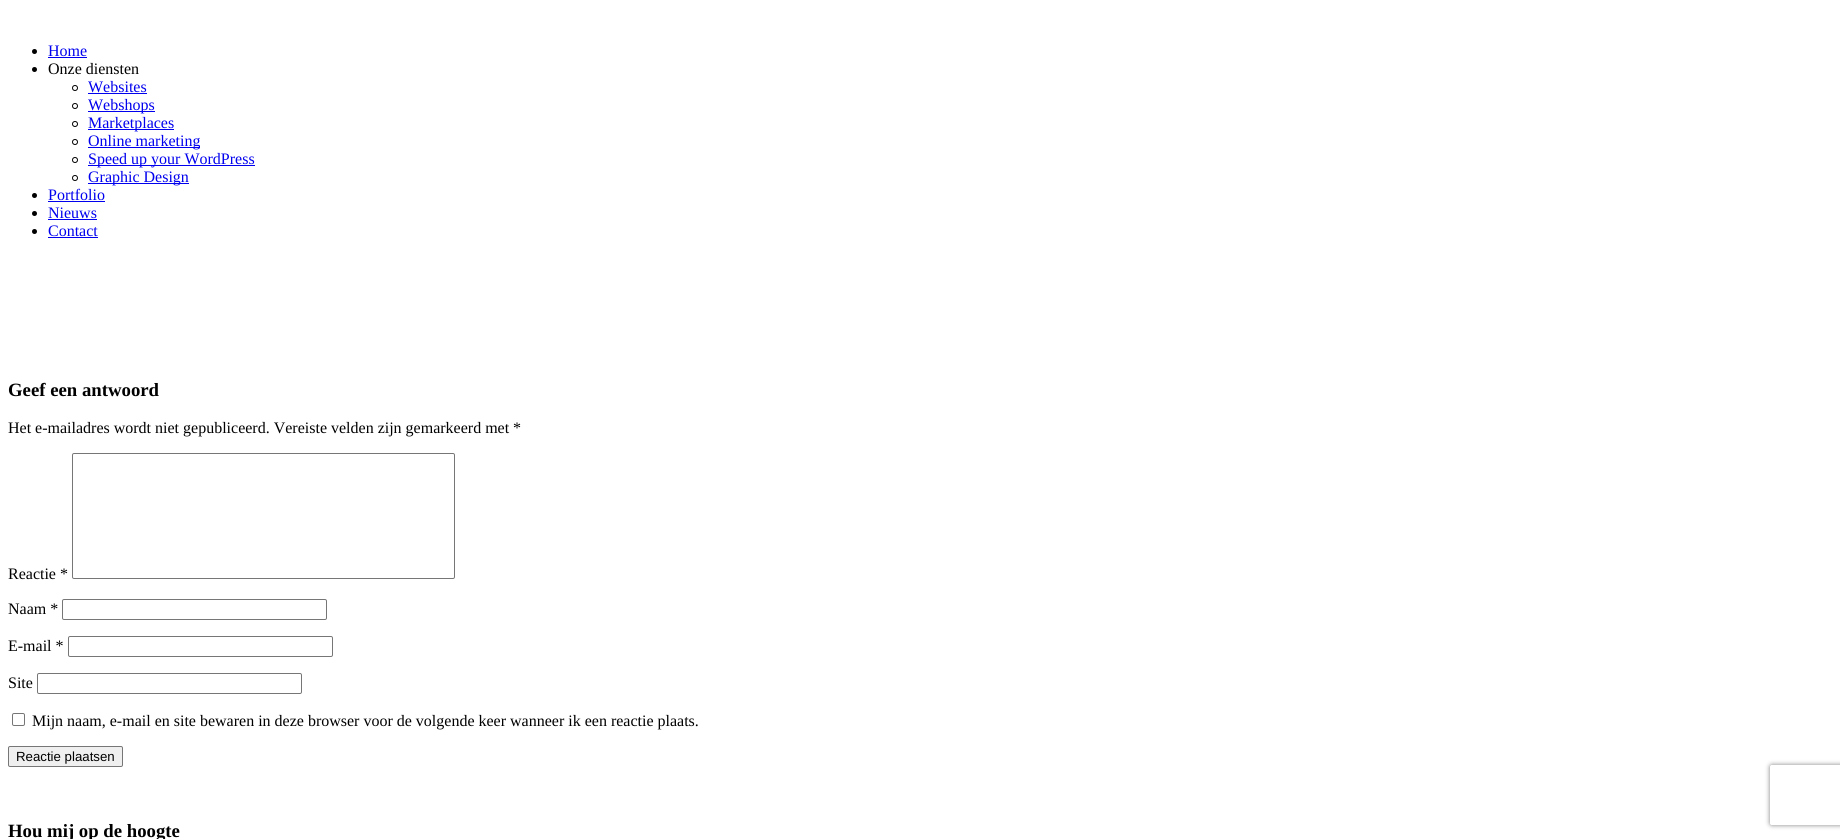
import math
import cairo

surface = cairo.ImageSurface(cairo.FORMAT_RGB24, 1840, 839)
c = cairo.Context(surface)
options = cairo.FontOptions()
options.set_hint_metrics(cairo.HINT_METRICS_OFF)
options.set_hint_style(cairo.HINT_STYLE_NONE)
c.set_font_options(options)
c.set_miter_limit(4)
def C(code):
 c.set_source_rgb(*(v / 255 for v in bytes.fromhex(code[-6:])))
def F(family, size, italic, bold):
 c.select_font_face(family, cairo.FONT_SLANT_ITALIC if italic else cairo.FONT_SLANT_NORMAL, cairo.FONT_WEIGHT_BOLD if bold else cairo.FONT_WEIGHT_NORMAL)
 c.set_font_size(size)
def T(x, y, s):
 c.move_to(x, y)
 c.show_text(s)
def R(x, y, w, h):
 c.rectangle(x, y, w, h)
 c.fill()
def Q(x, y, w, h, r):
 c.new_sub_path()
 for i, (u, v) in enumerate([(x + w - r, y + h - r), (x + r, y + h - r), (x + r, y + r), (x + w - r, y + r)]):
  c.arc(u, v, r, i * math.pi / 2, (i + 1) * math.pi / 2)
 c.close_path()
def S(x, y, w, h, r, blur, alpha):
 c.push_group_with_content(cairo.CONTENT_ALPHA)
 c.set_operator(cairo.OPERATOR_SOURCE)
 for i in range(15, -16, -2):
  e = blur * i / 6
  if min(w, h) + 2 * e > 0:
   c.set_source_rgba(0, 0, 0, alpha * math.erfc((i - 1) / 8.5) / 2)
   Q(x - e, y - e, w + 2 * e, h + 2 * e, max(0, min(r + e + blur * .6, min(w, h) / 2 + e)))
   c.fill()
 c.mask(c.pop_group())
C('ffffff')
c.paint()
C('000000')
c.arc(34.5,51.5,2.5,0,2 * math.pi)
c.fill()
F('Liberation Serif',16,0,0)
C('0000ee')
T(48,56,'Home')
R(48,57,39,1)
C('000000')
c.new_path()
c.arc(34.5,69.5,2.5,0,2 * math.pi)
c.fill()
T(48,74,'Onze diensten')
c.new_path()
c.arc(75,88,2.5,0,2 * math.pi)
c.set_line_width(1)
c.stroke()
C('0000ee')
T(88,92,'Websites')
R(88,93,59,1)
c.new_path()
c.arc(75,106,2.5,0,2 * math.pi)
C('000000')
c.stroke()
C('0000ee')
R(88,111,67,1)
T(88,110,'Webshops')
c.new_path()
c.arc(75,124,2.5,0,2 * math.pi)
C('000000')
c.stroke()
C('0000ee')
R(88,129,86,1)
T(88,128,'Marketplaces')
c.new_path()
c.arc(75,142,2.5,0,2 * math.pi)
C('000000')
c.stroke()
C('0000ee')
R(88,147,112,1)
T(88,146,'Online marketing')
c.new_path()
c.arc(75,160,2.5,0,2 * math.pi)
C('000000')
c.stroke()
C('0000ee')
R(88,165,167,1)
T(88,164,'Speed up your WordPress')
c.new_path()
c.arc(75,178,2.5,0,2 * math.pi)
C('000000')
c.stroke()
C('0000ee')
R(88,183,101,1)
T(88,182,'Graphic Design')
C('000000')
c.new_path()
c.arc(34.5,195.5,2.5,0,2 * math.pi)
c.fill()
C('0000ee')
T(48,200,'Portfolio')
R(48,201,57,1)
C('000000')
c.new_path()
c.arc(34.5,213.5,2.5,0,2 * math.pi)
c.fill()
C('0000ee')
T(48,218,'Nieuws')
R(48,219,49,1)
C('000000')
c.new_path()
c.arc(34.5,231.5,2.5,0,2 * math.pi)
c.fill()
C('0000ee')
T(48,236,'Contact')
R(48,237,50,1)
F('Liberation Serif',18.75,0,1)
C('000000')
T(8,396,'Geef een antwoord')
F('Liberation Serif',16,0,0)
T(8,433,'Het e-mailadres wordt niet gepubliceerd. Vereiste velden zijn gemarkeerd met *')
T(8,579,'Reactie *')
Q(72.5,453.5,382,125,1.5)
C('767676')
c.stroke()
C('000000')
T(8,614,'Naam *')
Q(62.5,599.5,264,20,1.5)
C('767676')
c.stroke()
C('000000')
T(8,651,'E-mail *')
Q(68.5,636.5,264,20,1.5)
C('767676')
c.stroke()
C('000000')
T(8,688,'Site')
Q(37.5,673.5,264,20,1.5)
C('767676')
c.stroke()
Q(12.5,713.5,12,12,1.5)
c.stroke()
C('000000')
T(32,726,'Mijn naam, e-mail en site bewaren in deze browser voor de volgende keer wanneer ik een reactie plaats.')
C('efefef')
Q(8.5,746.5,114,20,1.5)
c.fill_preserve()
C('767676')
c.stroke()
F('Liberation Sans',13.25,0,0)
C('000000')
T(16,761,'Reactie plaatsen')
F('Liberation Serif',18.75,0,1)
T(8,837,'Hou mij op de hoogte')
c.save()
c.set_fill_rule(cairo.FILL_RULE_EVEN_ODD)
c.new_path()
c.move_to(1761,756)
c.line_to(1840,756)
c.line_to(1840,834)
c.line_to(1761,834)
c.close_path()
c.move_to(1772,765)
c.line_to(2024,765)
c.curve_to(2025,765,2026,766,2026,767)
c.line_to(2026,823)
c.curve_to(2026,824,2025,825,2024,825)
c.line_to(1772,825)
c.curve_to(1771,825,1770,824,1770,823)
c.line_to(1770,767)
c.curve_to(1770,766,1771,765,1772,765)
c.close_path()
c.clip()
C('808080')
S(1770,765,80,60,2,2.5,1)
c.restore()
surface.write_to_png('o.png')
